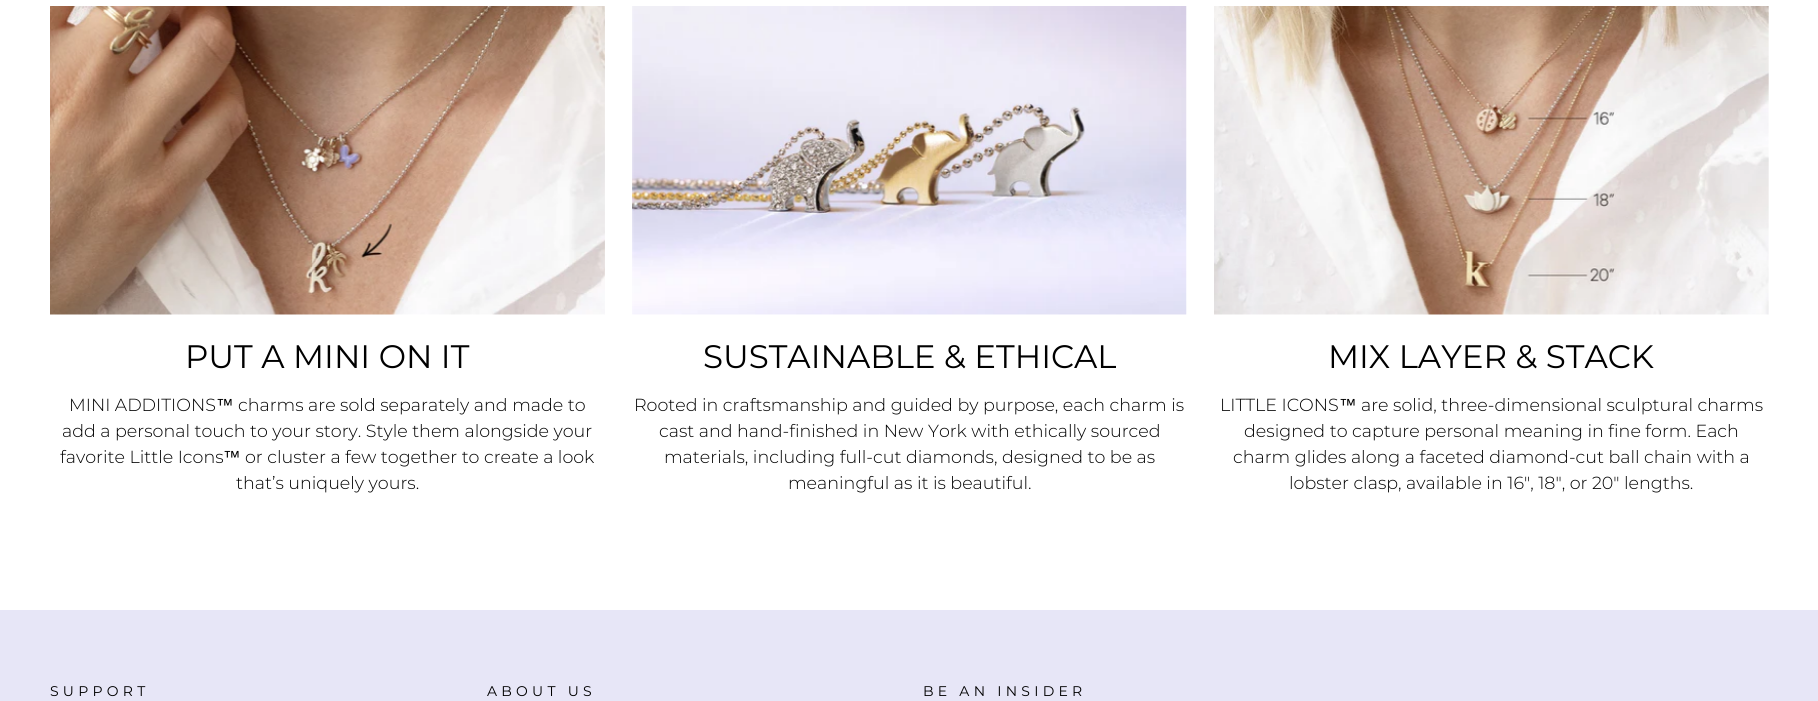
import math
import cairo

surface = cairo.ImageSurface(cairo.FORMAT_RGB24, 1818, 701)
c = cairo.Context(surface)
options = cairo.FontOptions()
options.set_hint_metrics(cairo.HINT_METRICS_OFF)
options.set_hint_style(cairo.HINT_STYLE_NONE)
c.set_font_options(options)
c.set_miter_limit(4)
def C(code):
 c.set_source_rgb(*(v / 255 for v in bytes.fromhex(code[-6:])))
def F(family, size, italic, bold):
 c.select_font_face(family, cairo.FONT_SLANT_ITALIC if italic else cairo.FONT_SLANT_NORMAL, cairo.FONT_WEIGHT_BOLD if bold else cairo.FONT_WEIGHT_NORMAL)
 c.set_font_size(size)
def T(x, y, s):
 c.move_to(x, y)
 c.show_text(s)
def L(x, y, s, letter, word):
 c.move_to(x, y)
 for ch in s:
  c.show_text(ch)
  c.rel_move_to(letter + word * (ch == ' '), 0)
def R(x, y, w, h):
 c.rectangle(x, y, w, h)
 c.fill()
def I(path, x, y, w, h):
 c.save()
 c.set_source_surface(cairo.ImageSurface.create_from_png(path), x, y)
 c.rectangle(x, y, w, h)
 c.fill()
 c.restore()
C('ffffff')
c.paint()
I('1.png',50,6,555,309)
F('Montserrat',32.5,0,0)
C('000000')
T(185,368,'PUT A MINI ON IT')
F('Montserrat Light',17.5,0,0)
T(69,411,'MINI ADDITIONS')
F('Liberation Sans',17.5,0,0)
T(216,411,'™')
F('Montserrat Light',17.5,0,0)
T(238,411,'charms are sold separately and made to')
T(62,437,'add a personal touch to your story. Style them alongside your')
T(60,463,'favorite Little Icons')
F('Liberation Sans',17.5,0,0)
T(223,463,'™')
F('Montserrat Light',17.5,0,0)
T(245,463,'or cluster a few together to create a look')
T(236,489,'that’s uniquely yours.')
I('2.png',632,6,555,309)
F('Montserrat',32.5,0,0)
T(703,368,'SUSTAINABLE & ETHICAL')
F('Montserrat Light',17.5,0,0)
T(634,411,'Rooted in craftsmanship and guided by purpose, each charm is')
T(659,437,'cast and hand-finished in New York with ethically sourced')
T(664,463,'materials, including full-cut diamonds, designed to be as')
T(788,489,'meaningful as it is beautiful.')
I('3.png',1214,6,555,309)
F('Montserrat',32.5,0,0)
T(1328,368,'MIX LAYER & STACK')
F('Montserrat Light',17.5,0,0)
T(1220,411,'LITTLE ICONS')
F('Liberation Sans',17.5,0,0)
T(1339,411,'™')
F('Montserrat Light',17.5,0,0)
T(1361,411,'are solid, three-dimensional sculptural charms')
T(1244,437,'designed to capture personal meaning in fine form. Each')
T(1233,463,'charm glides along a faceted diamond-cut ball chain with a')
T(1289,489,'lobster clasp, available in 16", 18", or 20" lengths.')
C('e7e6f7')
R(0,610,1818,91)
F('Montserrat',14,0,0)
C('000000')
L(50,696,'SUPPORT',4.25,0)
L(487,696,'ABOUT US',4.25,0)
L(923,696,'BE AN INSIDER',4.25,0)
surface.write_to_png('o.png')
